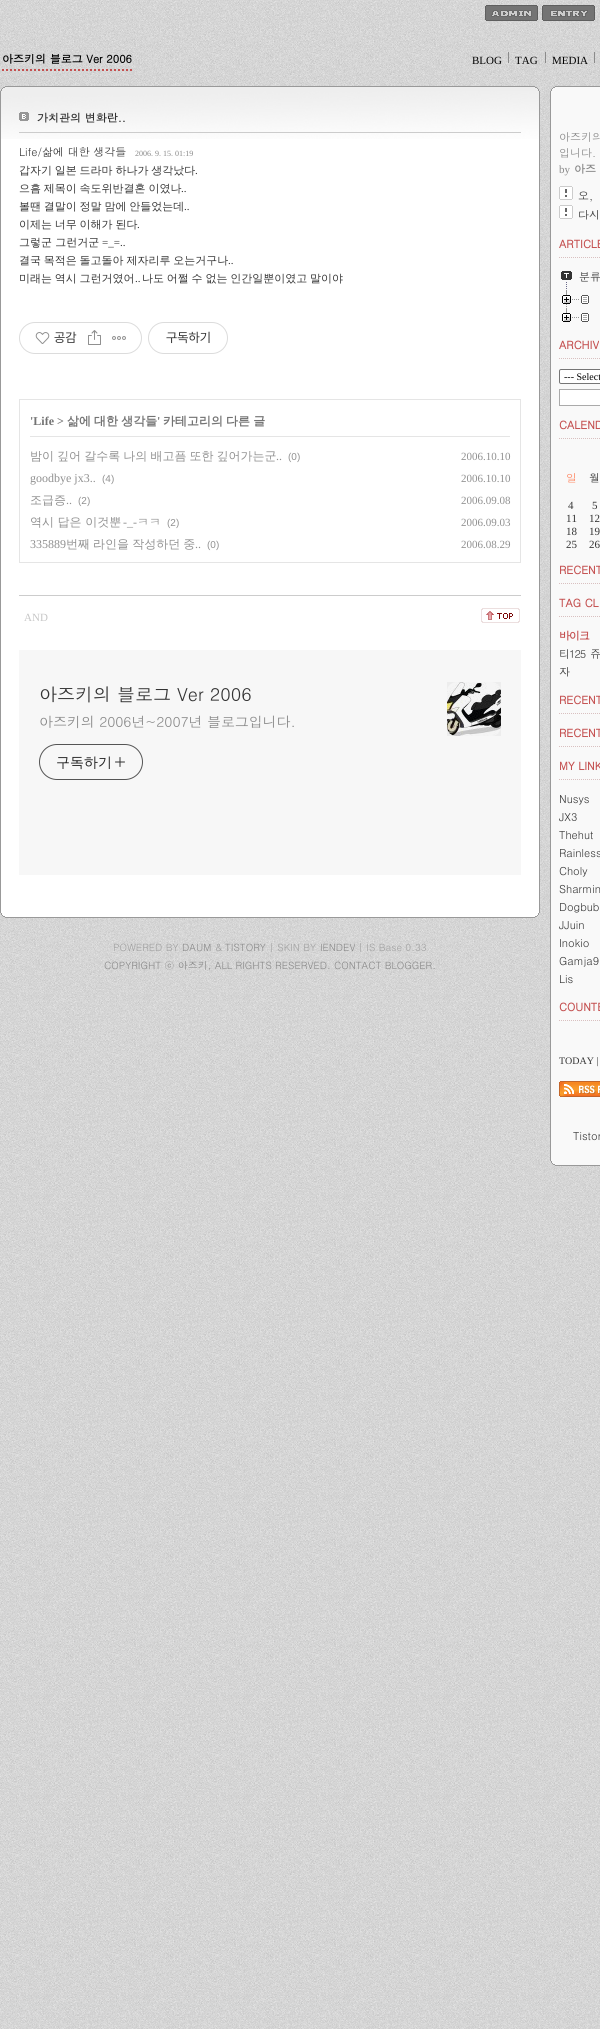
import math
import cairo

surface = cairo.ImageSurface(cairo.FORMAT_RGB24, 600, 2029)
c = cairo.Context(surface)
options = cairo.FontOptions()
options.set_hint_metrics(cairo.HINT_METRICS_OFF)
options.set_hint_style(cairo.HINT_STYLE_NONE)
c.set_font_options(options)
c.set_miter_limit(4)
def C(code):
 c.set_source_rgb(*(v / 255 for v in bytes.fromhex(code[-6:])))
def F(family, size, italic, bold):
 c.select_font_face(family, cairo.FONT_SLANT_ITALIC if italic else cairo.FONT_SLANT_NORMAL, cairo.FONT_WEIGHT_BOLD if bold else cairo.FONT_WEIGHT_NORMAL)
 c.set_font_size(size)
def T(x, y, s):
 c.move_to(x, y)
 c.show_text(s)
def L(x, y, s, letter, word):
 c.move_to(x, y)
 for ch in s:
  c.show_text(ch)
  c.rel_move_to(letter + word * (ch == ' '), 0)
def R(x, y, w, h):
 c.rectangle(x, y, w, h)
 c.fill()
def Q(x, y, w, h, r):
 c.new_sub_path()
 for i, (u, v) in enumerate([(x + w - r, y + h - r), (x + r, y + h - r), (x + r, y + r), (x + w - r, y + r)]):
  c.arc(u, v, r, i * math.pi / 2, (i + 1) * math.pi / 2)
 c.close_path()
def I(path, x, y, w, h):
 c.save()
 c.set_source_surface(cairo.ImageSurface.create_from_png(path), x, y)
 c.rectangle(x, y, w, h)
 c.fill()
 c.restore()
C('ffffff')
c.paint()
I('1.png',0,0,600,2029)
I('2.png',485,5,53,16)
I('3.png',542,5,53,16)
c.new_path()
c.move_to(2,70)
c.line_to(132,70)
C('c45050')
c.set_dash([2,2])
c.stroke()
F('Dotum',11,0,1)
C('000000')
T(2,63,'아즈키의 블로그 Ver 2006')
F('Liberation Serif',11,0,0)
T(472,64,'BLOG')
T(515,64,'TAG')
C('8b8b8b')
R(508,52,1,11)
C('000000')
T(552,64,'MEDIA')
C('8b8b8b')
R(545,52,1,11)
R(594,52,1,11)
C('999999')
R(5,86,530,1)
C('eeeeee')
R(3,87,534,1)
C('999999')
R(535,87,2,1)
R(3,87,2,1)
C('eeeeee')
R(2,88,536,1)
C('999999')
R(537,88,1,1)
R(2,88,1,1)
C('eeeeee')
R(1,89,538,2)
C('999999')
R(538,89,1,2)
R(1,89,1,2)
C('ffffff')
R(1,139,538,776)
I('4.png',1,91,538,48)
C('999999')
R(539,91,1,822)
R(0,91,1,822)
I('5.png',19,112,10,9)
C('cccccc')
R(19,132,502,1)
F('Dotum',11,0,1)
C('333333')
T(37,122,'가치관의 변화란..')
F('Dotum',11,0,0)
T(19,156,'Life/삶에 대한 생각들')
F('Liberation Serif',8,0,0)
C('888888')
T(135,156,'2006. 9. 15. 01:19')
F('WenQuanYi Zen Hei Medium',11,0,0)
C('333333')
L(19,174,'갑자기 일본 드라마 하나가 생각났다',0,-.5)
F('Liberation Serif',11,0,0)
T(195,174,'.')
F('WenQuanYi Zen Hei Medium',11,0,0)
L(19,192,'으흠 제목이 속도위반결혼 이였나',0,-.5)
F('Liberation Serif',11,0,0)
T(181,192,'..')
F('WenQuanYi Zen Hei Medium',11,0,0)
L(19,210,'볼땐 결말이 정말 맘에 안들었는데',0,-.5)
F('Liberation Serif',11,0,0)
T(184,210,'..')
F('WenQuanYi Zen Hei Medium',11,0,0)
L(19,228,'이제는 너무 이해가 된다',0,-.5)
F('Liberation Serif',11,0,0)
T(137,228,'.')
F('WenQuanYi Zen Hei Medium',11,0,0)
T(19,246,'그렇군 그런거군')
F('Liberation Serif',11,0,0)
T(102,246,'=_=..')
F('WenQuanYi Zen Hei Medium',11,0,0)
L(19,264,'결국 목적은 돌고돌아 제자리루 오는거구나',0,-.5)
F('Liberation Serif',11,0,0)
T(228,264,'..')
F('WenQuanYi Zen Hei Medium',11,0,0)
L(19,282,'미래는 역시 그런거였어',0,-.5)
F('Liberation Serif',11,0,0)
T(135,282,'..')
F('WenQuanYi Zen Hei Medium',11,0,0)
L(142,282,'나도 어쩔 수 없는 인간일뿐이였고 말이야',0,-.5)
Q(19.5,322.5,122,31,15.5)
C('dcdcdc')
c.set_line_width(1)
c.set_dash([])
c.stroke()
I('6.png',35,332,15,12)
F('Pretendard',13,0,0)
C('333333')
T(54,342,'공감')
I('7.png',88,330,13,15)
I('8.png',112,336,14,4)
Q(148.5,322.5,79,31,15.5)
C('dcdcdc')
c.stroke()
C('333333')
T(166,342,'구독하기')
c.rectangle(19.5,399.5,501,163)
C('e5e5e5')
c.stroke()
R(30,436,480,1)
F('Liberation Serif',12,0,1)
C('737373')
T(30,425,'\'Life >')
F('WenQuanYi Zen Hei',12,0,1)
L(67,425,'삶에 대한 생각들',0,-.5)
F('Liberation Serif',12,0,1)
T(157,425,'\'')
F('WenQuanYi Zen Hei',12,0,1)
L(163,425,'카테고리의 다른 글',0,-.5)
F('WenQuanYi Zen Hei Medium',12,0,0)
C('909090')
L(30,460,'밤이 깊어 갈수록 나의 배고픔 또한 깊어가는군',0,-.5)
F('Liberation Serif',12,0,0)
T(276,460,'..')
F('Liberation Sans',10,0,0)
T(288,460,'(0)')
F('Liberation Serif',11,0,0)
T(461,460,'2006.10.10')
F('Liberation Serif',12,0,0)
T(30,482,'goodbye jx3..')
F('Liberation Sans',10,0,0)
T(102,482,'(4)')
F('Liberation Serif',11,0,0)
T(461,482,'2006.10.10')
F('WenQuanYi Zen Hei Medium',12,0,0)
T(30,504,'조급증')
F('Liberation Serif',12,0,0)
T(66,504,'..')
F('Liberation Sans',10,0,0)
T(78,504,'(2)')
F('Liberation Serif',11,0,0)
T(461,504,'2006.09.08')
F('WenQuanYi Zen Hei Medium',12,0,0)
T(30,526,'역시 답은 이것뿐')
F('Liberation Serif',12,0,0)
T(123,526,'-_-')
F('WenQuanYi Zen Hei Medium',12,0,0)
T(137,526,'ㅋㅋ')
F('Liberation Sans',10,0,0)
T(167,526,'(2)')
F('Liberation Serif',11,0,0)
T(461,526,'2006.09.03')
F('Liberation Serif',12,0,0)
T(30,548,'335889')
F('WenQuanYi Zen Hei Medium',12,0,0)
L(66,548,'번째 라인을 작성하던 중',0,-.5)
F('Liberation Serif',12,0,0)
T(195,548,'..')
F('Liberation Sans',10,0,0)
T(207,548,'(0)')
F('Liberation Serif',11,0,0)
T(461,548,'2006.08.29')
C('cccccc')
R(19,595,502,1)
C('c6c6c6')
T(24,621,'AND')
I('9.png',481,608,39,15)
C('f7f7f7')
R(19,650,502,225)
F('Dotum',18,0,0)
C('333333')
T(39,701,'아즈키의 블로그 Ver 2006')
F('Dotum',14,0,0)
C('888888')
L(39,727,'아즈키의 2006년~2007년 블로그입니다.',-.1,0)
Q(39.5,744.5,103,35,17.5)
C('555555')
c.stroke()
F('WenQuanYi Zen Hei Medium',14,0,0)
C('222222')
T(56,767,'구독하기')
I('10.png',115,757,10,10)
I('11.png',447,682,54,54)
c.set_source_rgba(0,0,0,0.04)
R(447,682,54,54)
C('999999')
R(538,913,1,2)
R(1,913,1,2)
C('ffffff')
R(2,915,536,1)
C('999999')
R(537,915,1,1)
R(2,915,1,1)
C('ffffff')
R(3,916,534,1)
C('999999')
R(535,916,2,1)
R(3,916,2,1)
R(5,917,530,1)
F('Dotum',10,0,0)
C('a0a0a0')
T(113,951,'POWERED BY')
C('888888')
T(182,951,'DAUM')
C('a0a0a0')
T(215,951,'&')
C('888888')
T(225,951,'TISTORY')
C('a0a0a0')
T(269,951,'| SKIN BY')
C('888888')
T(320,951,'IENDEV')
C('a0a0a0')
T(358,951,'| IS Base 0.33')
C('888888')
T(104,969,'COPYRIGHT ⓒ 아즈키, ALL RIGHTS RESERVED. CONTACT BLOGGER.')
C('999999')
R(555,86,45,1)
C('f9f9f9')
R(553,87,47,1)
C('999999')
R(553,87,2,1)
C('f9f9f9')
R(552,88,48,1)
C('999999')
R(552,88,1,1)
C('f9f9f9')
R(551,89,49,1074)
C('999999')
R(551,89,1,2)
R(550,91,1,1070)
F('Dotum',11,0,0)
C('888888')
T(559,141,'아즈키의')
T(559,157,'입니다.')
F('Liberation Serif',11,0,0)
T(559,173,'by')
F('Dotum',11,0,1)
T(574,173,'아즈')
I('12.png',559,186,14,14)
F('Dotum',11,0,0)
C('333333')
T(578,200,'오,')
I('12.png',559,205,14,14)
T(578,219,'다시')
I('13.png',559,257,41,1)
F('Dotum',11,0,1)
C('c45050')
T(559,248,'ARTICLE')
I('14.png',561,271,11,18)
F('Dotum',11,0,0)
C('333333')
T(579,281,'분류')
I('15.png',566,290,1,17)
I('16.png',562,291,27,13)
I('17.png',566,308,1,5)
I('16.png',562,309,27,13)
I('13.png',559,358,41,1)
F('Dotum',11,0,1)
C('c45050')
T(559,349,'ARCHIV')
C('ffffff')
Q(559.5,369.5,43,14,1.5)
c.fill_preserve()
C('767676')
c.stroke()
F('Liberation Serif',10,0,0)
C('000000')
T(564,380,'--- Select')
C('ffffff')
c.rectangle(559.5,389.5,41,16)
c.fill_preserve()
C('aaaaaa')
c.stroke()
I('13.png',559,438,41,1)
F('Dotum',11,0,1)
C('c45050')
T(559,429,'CALEND')
F('Dotum',11,0,0)
C('ff845e')
T(566,482,'일')
C('333333')
T(589,482,'월')
F('Liberation Serif',11,0,0)
T(568,509,'4')
T(592,509,'5')
T(566,522,'11')
T(589,522,'12')
T(566,535,'18')
T(589,535,'19')
T(566,548,'25')
T(589,548,'26')
I('13.png',559,583,41,1)
F('Dotum',11,0,1)
C('c45050')
T(559,574,'RECENT')
I('13.png',559,616,41,1)
T(559,607,'TAG CL')
L(559,640,'바이크',-1,0)
F('Dotum',11,0,0)
C('333333')
L(559,658,'티125',-1,0)
L(590,658,'쥬',-1,0)
L(559,676,'자',-1,0)
I('13.png',559,713,41,1)
F('Dotum',11,0,1)
C('c45050')
T(559,704,'RECENT')
I('13.png',559,746,41,1)
T(559,737,'RECENT')
I('13.png',559,779,41,1)
T(559,770,'MY LINK')
F('Dotum',11,0,0)
C('333333')
T(559,803,'Nusys')
T(559,821,'JX3')
T(559,839,'Thehut')
T(559,857,'Rainless')
T(559,875,'Choly')
T(559,893,'Sharmin')
T(559,911,'Dogbub')
T(559,929,'JJuin')
T(559,947,'Inokio')
T(559,965,'Gamja9')
T(559,983,'Lis')
I('13.png',559,1020,41,1)
F('Dotum',11,0,1)
C('c45050')
T(559,1011,'COUNTE')
F('Liberation Serif',10,0,0)
C('333333')
T(559,1064,'TODAY |')
I('18.png',559,1081,41,16)
F('Dotum',11,0,0)
T(573,1140,'Tistor')
C('999999')
R(551,1161,1,2)
C('f9f9f9')
R(552,1163,48,1)
C('999999')
R(552,1163,1,1)
C('f9f9f9')
R(553,1164,47,1)
C('999999')
R(553,1164,2,1)
R(555,1165,45,1)
surface.write_to_png('o.png')
